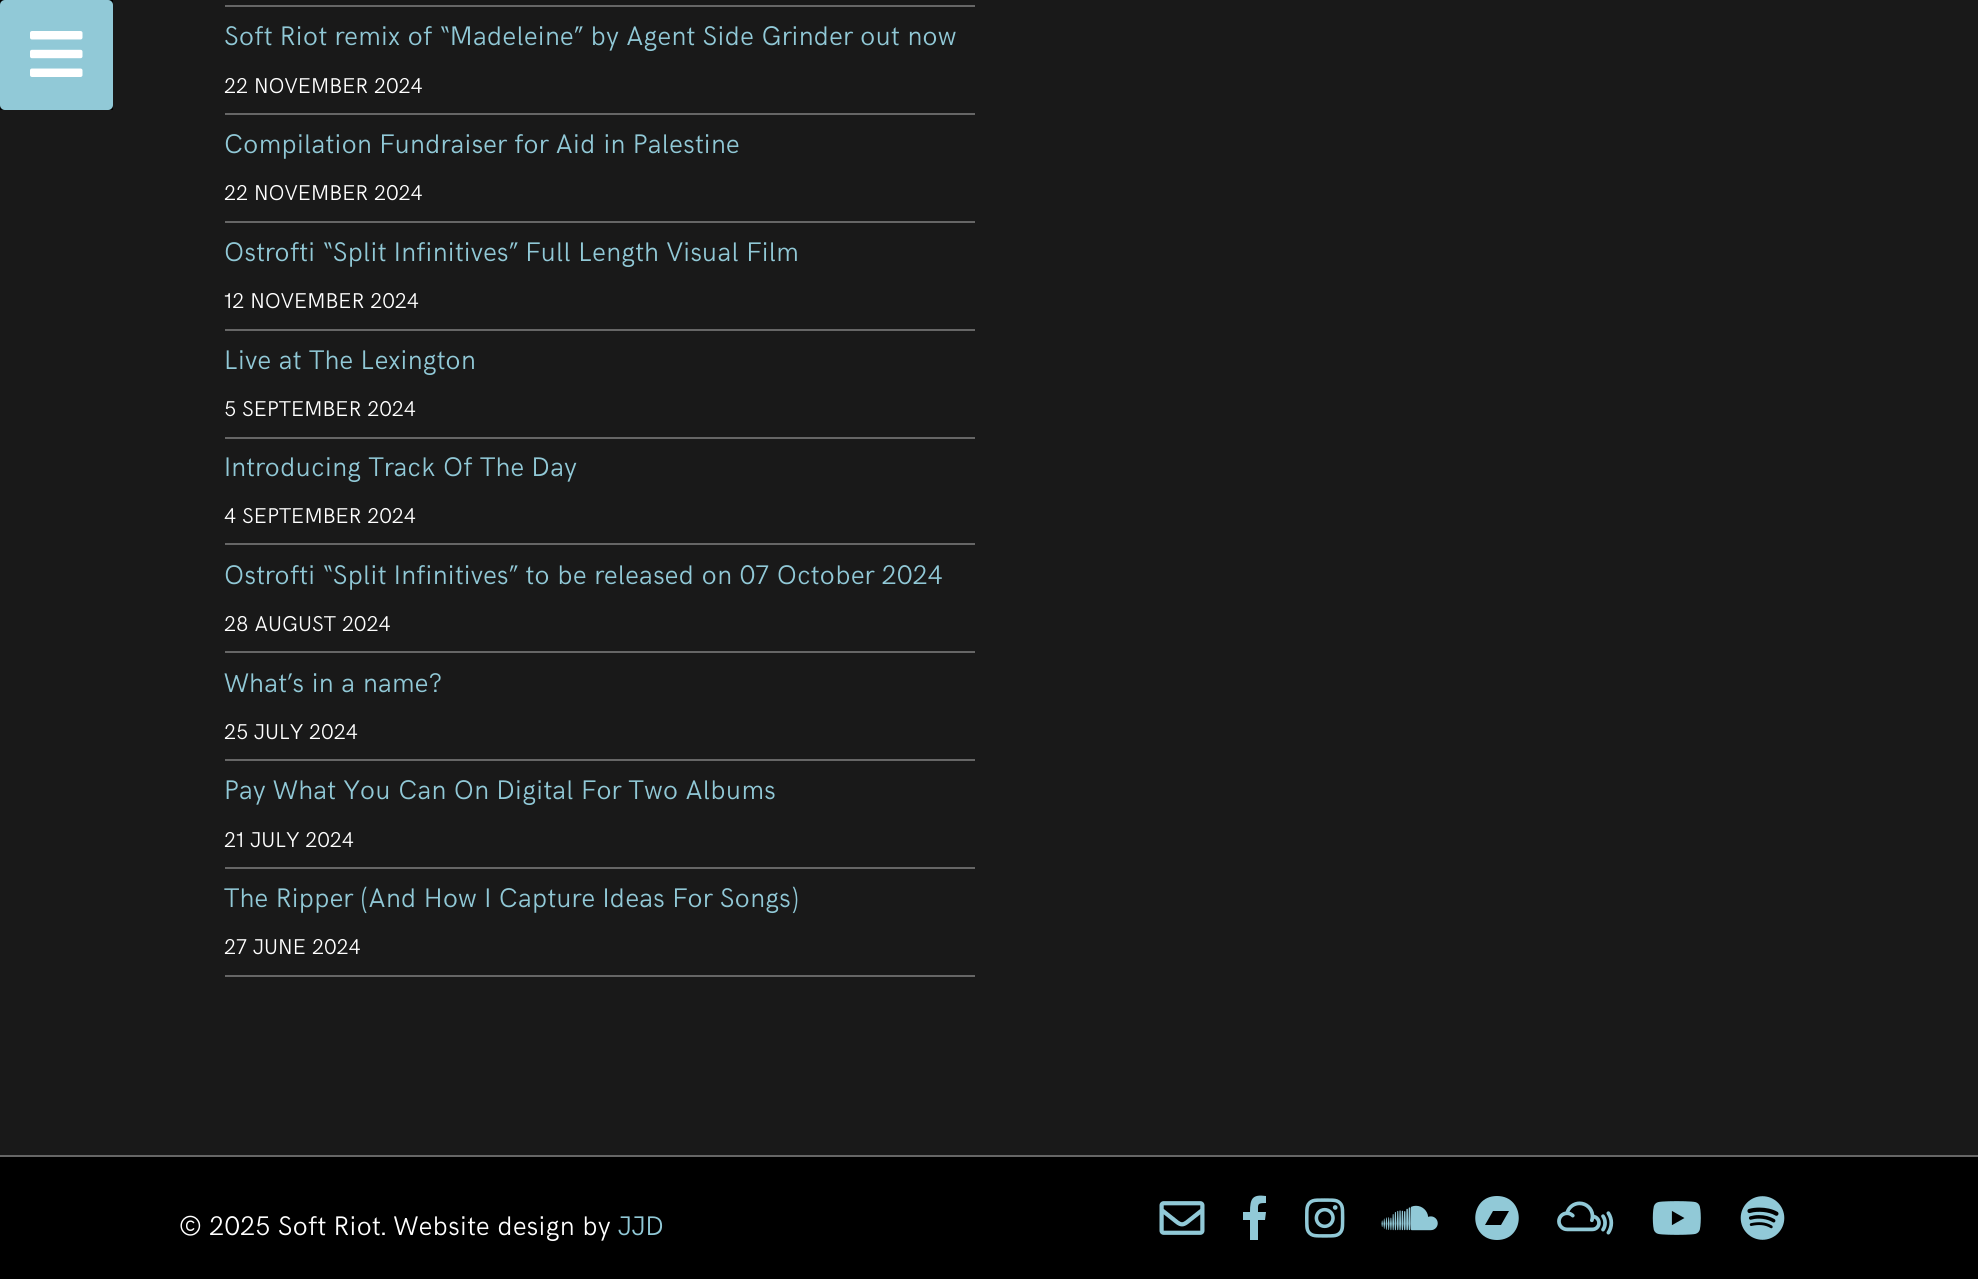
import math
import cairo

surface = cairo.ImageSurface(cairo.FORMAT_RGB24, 1978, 1279)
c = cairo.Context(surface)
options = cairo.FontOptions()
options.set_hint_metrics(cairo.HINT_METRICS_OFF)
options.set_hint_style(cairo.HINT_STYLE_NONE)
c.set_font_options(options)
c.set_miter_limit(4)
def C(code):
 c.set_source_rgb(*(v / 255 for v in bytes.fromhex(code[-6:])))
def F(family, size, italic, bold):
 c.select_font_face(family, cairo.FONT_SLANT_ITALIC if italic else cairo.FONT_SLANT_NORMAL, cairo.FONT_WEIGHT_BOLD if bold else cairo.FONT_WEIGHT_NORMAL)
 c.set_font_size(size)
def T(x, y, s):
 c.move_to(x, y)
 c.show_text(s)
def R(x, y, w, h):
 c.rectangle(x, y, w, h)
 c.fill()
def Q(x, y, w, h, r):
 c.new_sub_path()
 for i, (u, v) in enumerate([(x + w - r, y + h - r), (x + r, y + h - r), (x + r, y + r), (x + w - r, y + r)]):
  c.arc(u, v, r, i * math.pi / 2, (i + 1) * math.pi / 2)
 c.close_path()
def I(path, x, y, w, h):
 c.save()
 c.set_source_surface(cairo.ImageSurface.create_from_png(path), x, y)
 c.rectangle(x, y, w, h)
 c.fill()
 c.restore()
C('191919')
c.paint()
C('000000')
R(0,0,113,110)
C('91c9d7')
Q(0,0,113,110,5)
c.fill()
I('1.png',30,31,53,46)
C('666666')
R(225,5,750,2)
R(225,113,750,2)
F('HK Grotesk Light',27,0,0)
C('91c9d7')
T(224,45,'Soft Riot remix of “Madeleine” by Agent Side Grinder out now')
F('HK Grotesk Light',21.5,0,0)
C('ffffff')
T(224,93,'22 NOVEMBER 2024')
C('666666')
R(225,221,750,2)
F('HK Grotesk Light',27,0,0)
C('91c9d7')
T(224,153,'Compilation Fundraiser for Aid in Palestine')
F('HK Grotesk Light',21.5,0,0)
C('ffffff')
T(224,200,'22 NOVEMBER 2024')
C('666666')
R(225,329,750,2)
F('HK Grotesk Light',27,0,0)
C('91c9d7')
T(224,261,'Ostrofti “Split Infinitives” Full Length Visual Film')
F('HK Grotesk Light',21.5,0,0)
C('ffffff')
T(224,308,'12 NOVEMBER 2024')
C('666666')
R(225,437,750,2)
F('HK Grotesk Light',27,0,0)
C('91c9d7')
T(224,369,'Live at The Lexington')
F('HK Grotesk Light',21.5,0,0)
C('ffffff')
T(224,416,'5 SEPTEMBER 2024')
C('666666')
R(225,543,750,2)
F('HK Grotesk Light',27,0,0)
C('91c9d7')
T(224,476,'Introducing Track Of The Day')
F('HK Grotesk Light',21.5,0,0)
C('ffffff')
T(224,523,'4 SEPTEMBER 2024')
C('666666')
R(225,651,750,2)
F('HK Grotesk Light',27,0,0)
C('91c9d7')
T(224,584,'Ostrofti “Split Infinitives” to be released on 07 October 2024')
F('HK Grotesk Light',21.5,0,0)
C('ffffff')
T(224,631,'28 AUGUST 2024')
C('666666')
R(225,759,750,2)
F('HK Grotesk Light',27,0,0)
C('91c9d7')
T(224,692,'What’s in a name?')
F('HK Grotesk Light',21.5,0,0)
C('ffffff')
T(224,739,'25 JULY 2024')
C('666666')
R(225,867,750,2)
F('HK Grotesk Light',27,0,0)
C('91c9d7')
T(224,799,'Pay What You Can On Digital For Two Albums')
F('HK Grotesk Light',21.5,0,0)
C('ffffff')
T(224,847,'21 JULY 2024')
C('666666')
R(225,975,750,2)
F('HK Grotesk Light',27,0,0)
C('91c9d7')
T(224,907,'The Ripper (And How I Capture Ideas For Songs)')
F('HK Grotesk Light',21.5,0,0)
C('ffffff')
T(224,954,'27 JUNE 2024')
C('000000')
R(0,1157,1978,122)
C('666666')
R(0,1155,1978,2)
F('HK Grotesk Light',27,0,0)
C('ffffff')
T(179,1235,'© 2025 Soft Riot. Website design by')
C('91c9d7')
T(618,1235,'JJD')
I('2.png',1159,1201,46,34)
c.new_path()
c.move_to(1250,1240)
c.line_to(1250,1220)
c.line_to(1243,1220)
c.line_to(1243,1212)
c.line_to(1250,1212)
c.curve_to(1250,1199,1252,1194,1266,1196)
c.line_to(1266,1203)
c.curve_to(1257,1203,1258,1204,1258,1212)
c.line_to(1266,1212)
c.line_to(1265,1220)
c.line_to(1258,1220)
c.line_to(1258,1240)
c.fill()
I('3.png',1305,1198,40,40)
I('4.png',1381,1205,57,26)
c.new_path()
c.move_to(1497,1196)
c.curve_to(1468,1196,1468,1240,1497,1240)
c.curve_to(1526,1240,1526,1196,1497,1196)
c.close_path()
c.move_to(1501,1225)
c.line_to(1485,1225)
c.line_to(1493,1211)
c.line_to(1509,1211)
c.close_path()
c.fill()
I('5.png',1557,1201,57,34)
I('6.png',1652,1201,49,34)
I('7.png',1740,1196,45,44)
surface.write_to_png('o.png')
